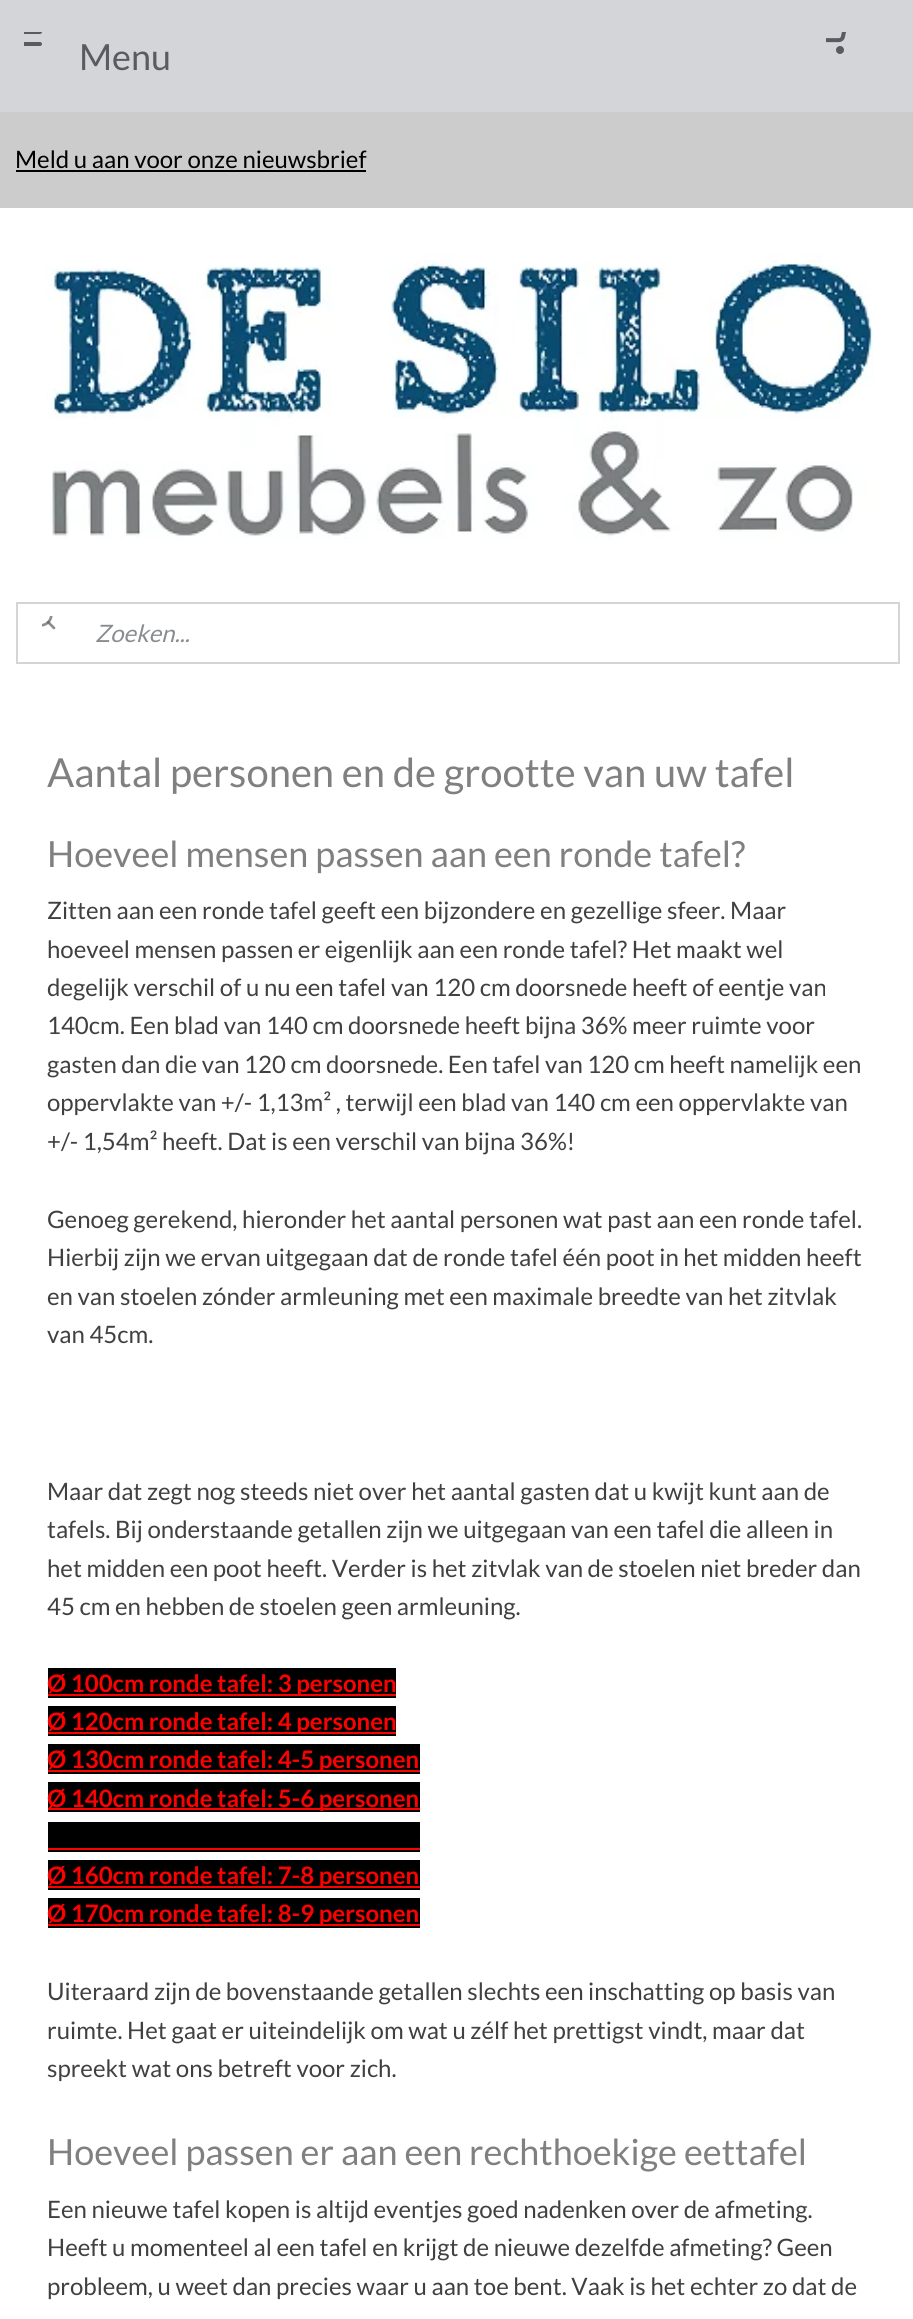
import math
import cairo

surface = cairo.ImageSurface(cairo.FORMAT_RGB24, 913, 2319)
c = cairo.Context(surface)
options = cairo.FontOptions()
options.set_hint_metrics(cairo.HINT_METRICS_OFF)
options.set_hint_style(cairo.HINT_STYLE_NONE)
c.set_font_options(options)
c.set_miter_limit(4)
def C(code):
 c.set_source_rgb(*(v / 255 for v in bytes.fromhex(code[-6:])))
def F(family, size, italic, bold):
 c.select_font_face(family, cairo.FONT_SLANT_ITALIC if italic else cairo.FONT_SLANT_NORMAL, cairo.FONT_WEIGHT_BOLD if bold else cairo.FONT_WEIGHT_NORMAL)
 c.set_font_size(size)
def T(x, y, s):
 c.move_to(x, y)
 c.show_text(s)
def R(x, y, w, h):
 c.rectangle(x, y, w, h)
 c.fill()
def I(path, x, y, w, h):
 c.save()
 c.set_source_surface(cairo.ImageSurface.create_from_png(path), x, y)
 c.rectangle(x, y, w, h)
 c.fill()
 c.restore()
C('ffffff')
c.paint()
C('d3d5d9')
R(0,0,913,112)
I('1.png',24,32,18,14)
F('Lato',36,0,0)
C('575b62')
T(79,70,'Menu')
I('2.png',826,32,20,22)
C('cccccc')
R(0,112,913,96)
F('Lato',24,0,0)
C('000000')
T(15,168,'Meld u aan voor onze nieuwsbrief')
R(16,170,350,2)
I('3.png',46,253,828,286)
c.rectangle(17,603,882,60)
C('d3d5d9')
c.stroke()
I('4.png',42,616,14,14)
F('Lato',24,1,0)
C('898c91')
T(95,642,'Zoeken...')
F('Lato',40,0,0)
C('808080')
T(47,787,'Aantal personen en de grootte van uw tafel')
F('Lato',36,0,0)
T(47,867,'Hoeveel mensen passen aan een ronde tafel?')
F('Lato',24,0,0)
C('404040')
T(47,919,'Zitten aan een ronde tafel geeft een bijzondere en gezellige sfeer. Maar')
T(47,958,'hoeveel mensen passen er eigenlijk aan een ronde tafel? Het maakt wel')
T(47,996,'degelijk verschil of u nu een tafel van 120 cm doorsnede heeft of eentje van')
T(47,1034,'140cm. Een blad van 140 cm doorsnede heeft bijna 36% meer ruimte voor')
T(47,1073,'gasten dan die van 120 cm doorsnede. Een tafel van 120 cm heeft namelijk een')
T(47,1111,'oppervlakte van +/- 1,13m² , terwijl een blad van 140 cm een oppervlakte van')
T(47,1150,'+/- 1,54m² heeft. Dat is een verschil van bijna 36%!')
T(47,1228,'Genoeg gerekend, hieronder het aantal personen wat past aan een ronde tafel.')
T(47,1266,'Hierbij zijn we ervan uitgegaan dat de ronde tafel één poot in het midden heeft')
T(47,1305,'en van stoelen zónder armleuning met een maximale breedte van het zitvlak')
T(47,1343,'van 45cm.')
T(47,1500,'Maar dat zegt nog steeds niet over het aantal gasten dat u kwijt kunt aan de')
T(47,1538,'tafels. Bij onderstaande getallen zijn we uitgegaan van een tafel die alleen in')
T(47,1577,'het midden een poot heeft. Verder is het zitvlak van de stoelen niet breder dan')
T(47,1615,'45 cm en hebben de stoelen geen armleuning.')
C('000000')
R(48,1668,348,30)
C('ff0000')
R(48,1694,348,2)
F('Lato',24,0,1)
T(47,1692,'Ø 100cm ronde tafel: 3 personen')
C('000000')
R(48,1706,348,30)
C('ff0000')
R(48,1732,348,2)
T(47,1730,'Ø 120cm ronde tafel: 4 personen')
C('000000')
R(48,1744,372,30)
C('ff0000')
R(48,1770,372,2)
T(47,1768,'Ø 130cm ronde tafel: 4-5 personen')
C('000000')
R(48,1782,372,30)
C('ff0000')
R(48,1808,372,2)
T(47,1807,'Ø 140cm ronde tafel: 5-6 personen')
C('000000')
R(48,1822,372,30)
R(48,1860,372,30)
C('ff0000')
R(48,1886,372,2)
T(47,1884,'Ø 160cm ronde tafel: 7-8 personen')
R(48,1848,372,2)
C('000000')
R(48,1898,372,30)
C('ff0000')
R(48,1924,372,2)
T(47,1922,'Ø 170cm ronde tafel: 8-9 personen')
F('Lato',24,0,0)
C('404040')
T(47,2000,'Uiteraard zijn de bovenstaande getallen slechts een inschatting op basis van')
T(47,2039,'ruimte. Het gaat er uiteindelijk om wat u zélf het prettigst vindt, maar dat')
T(47,2077,'spreekt wat ons betreft voor zich.')
F('Lato',36,0,0)
C('808080')
T(47,2165,'Hoeveel passen er aan een rechthoekige eettafel')
F('Lato',24,0,0)
C('404040')
T(47,2218,'Een nieuwe tafel kopen is altijd eventjes goed nadenken over de afmeting.')
T(47,2256,'Heeft u momenteel al een tafel en krijgt de nieuwe dezelfde afmeting? Geen')
T(47,2295,'probleem, u weet dan precies waar u aan toe bent. Vaak is het echter zo dat de')
surface.write_to_png('o.png')
